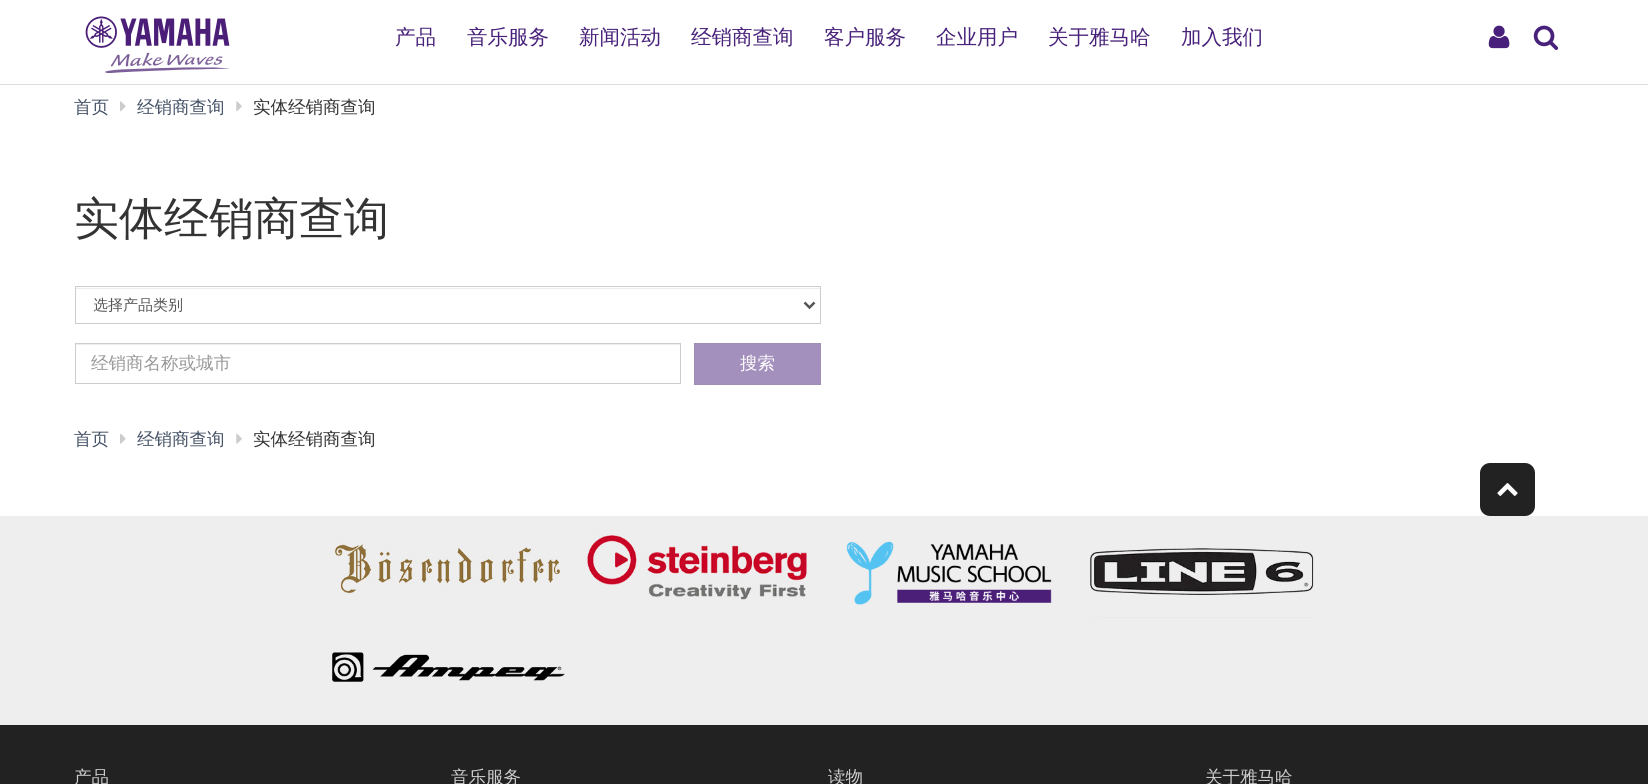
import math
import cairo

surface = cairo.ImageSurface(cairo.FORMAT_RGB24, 1648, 784)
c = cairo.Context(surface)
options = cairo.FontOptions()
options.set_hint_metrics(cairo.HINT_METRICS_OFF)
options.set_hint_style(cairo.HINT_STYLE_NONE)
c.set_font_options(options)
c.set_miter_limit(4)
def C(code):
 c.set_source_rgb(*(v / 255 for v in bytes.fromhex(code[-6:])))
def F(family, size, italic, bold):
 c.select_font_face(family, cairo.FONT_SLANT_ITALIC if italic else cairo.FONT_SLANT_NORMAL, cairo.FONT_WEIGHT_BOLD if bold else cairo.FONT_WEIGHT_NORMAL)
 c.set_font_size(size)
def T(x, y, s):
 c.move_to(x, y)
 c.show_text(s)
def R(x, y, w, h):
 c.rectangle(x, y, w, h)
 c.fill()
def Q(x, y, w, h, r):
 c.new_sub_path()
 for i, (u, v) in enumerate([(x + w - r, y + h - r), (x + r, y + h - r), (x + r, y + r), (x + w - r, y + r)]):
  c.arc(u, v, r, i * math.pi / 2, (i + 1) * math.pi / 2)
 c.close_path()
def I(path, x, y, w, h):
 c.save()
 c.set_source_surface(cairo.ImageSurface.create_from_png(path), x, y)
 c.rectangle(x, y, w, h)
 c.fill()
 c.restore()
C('ffffff')
c.paint()
C('dddddd')
R(0,84,1648,1)
I('1.png',85,16,145,57)
F('WenQuanYi Zen Hei Medium',20.5,0,0)
C('48217a')
T(395,44,'产品')
T(467,44,'音乐服务')
T(579,44,'新闻活动')
T(691,44,'经销商查询')
T(824,44,'客户服务')
T(936,44,'企业用户')
T(1048,44,'关于雅马哈')
T(1181,44,'加入我们')
I('2.png',1488,25,22,24)
I('3.png',1533,25,26,25)
F('WenQuanYi Zen Hei Medium',17.5,0,0)
C('445166')
T(74,113,'首页')
I('4.png',120,101,6,11)
T(137,113,'经销商查询')
I('5.png',236,101,6,11)
C('333333')
T(253,113,'实体经销商查询')
F('WenQuanYi Zen Hei Medium',45,0,0)
T(74,234,'实体经销商查询')
C('ececec')
R(76,288,744,1)
c.rectangle(75.5,286.5,745,37)
C('cccccc')
c.set_line_width(1)
c.stroke()
c.new_path()
c.move_to(804.5,302.5)
c.line_to(809.5,307.5)
c.line_to(814.5,302.5)
C('555555')
c.set_line_width(2.5)
c.stroke()
c.save()
c.rectangle(94,295,694,20)
c.clip()
F('WenQuanYi Zen Hei Medium',15,0,0)
T(93,310,'选择产品类别')
c.restore()
C('ececec')
R(76,344,604,1)
c.rectangle(75.5,343.5,605,40)
C('cccccc')
c.set_line_width(1)
c.stroke()
F('WenQuanYi Zen Hei Medium',17.5,0,0)
C('999999')
T(91,369,'经销商名称或城市')
C('a490bd')
c.rectangle(694.5,343.5,126,41)
c.fill_preserve()
C('9e8eb3')
c.stroke()
C('ffffff')
T(740,369,'搜索')
C('445166')
T(74,445,'首页')
I('6.png',120,433,6,11)
T(137,445,'经销商查询')
I('7.png',236,433,6,11)
C('333333')
T(253,445,'实体经销商查询')
C('222222')
Q(1480,463,55,53,10)
c.fill()
I('8.png',1497,483,21,13)
R(0,725,1648,59)
C('eeeeee')
R(0,516,1648,209)
I('9.png',333,541,228,53)
I('10.png',583,534,224,66)
I('11.png',846,541,206,64)
I('12.png',1090,548,224,70)
I('13.png',332,652,233,30)
C('cccccc')
T(74,783,'产品')
T(451,783,'音乐服务')
T(828,783,'读物')
T(1205,783,'关于雅马哈')
surface.write_to_png('o.png')
